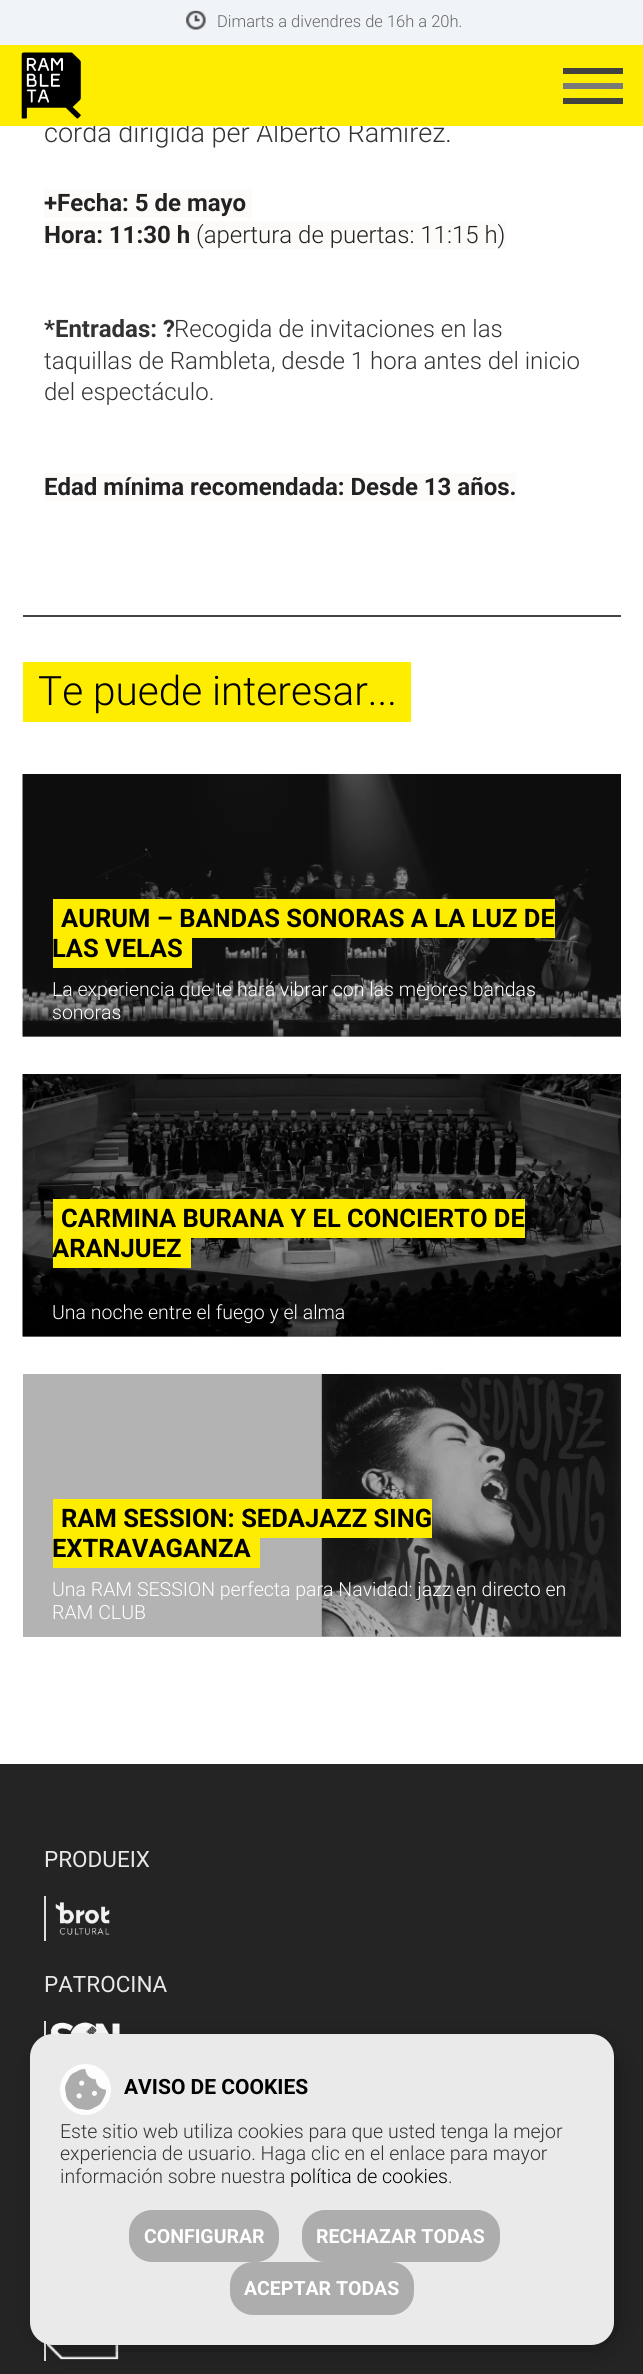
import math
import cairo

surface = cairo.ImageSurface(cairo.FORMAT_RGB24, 643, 2374)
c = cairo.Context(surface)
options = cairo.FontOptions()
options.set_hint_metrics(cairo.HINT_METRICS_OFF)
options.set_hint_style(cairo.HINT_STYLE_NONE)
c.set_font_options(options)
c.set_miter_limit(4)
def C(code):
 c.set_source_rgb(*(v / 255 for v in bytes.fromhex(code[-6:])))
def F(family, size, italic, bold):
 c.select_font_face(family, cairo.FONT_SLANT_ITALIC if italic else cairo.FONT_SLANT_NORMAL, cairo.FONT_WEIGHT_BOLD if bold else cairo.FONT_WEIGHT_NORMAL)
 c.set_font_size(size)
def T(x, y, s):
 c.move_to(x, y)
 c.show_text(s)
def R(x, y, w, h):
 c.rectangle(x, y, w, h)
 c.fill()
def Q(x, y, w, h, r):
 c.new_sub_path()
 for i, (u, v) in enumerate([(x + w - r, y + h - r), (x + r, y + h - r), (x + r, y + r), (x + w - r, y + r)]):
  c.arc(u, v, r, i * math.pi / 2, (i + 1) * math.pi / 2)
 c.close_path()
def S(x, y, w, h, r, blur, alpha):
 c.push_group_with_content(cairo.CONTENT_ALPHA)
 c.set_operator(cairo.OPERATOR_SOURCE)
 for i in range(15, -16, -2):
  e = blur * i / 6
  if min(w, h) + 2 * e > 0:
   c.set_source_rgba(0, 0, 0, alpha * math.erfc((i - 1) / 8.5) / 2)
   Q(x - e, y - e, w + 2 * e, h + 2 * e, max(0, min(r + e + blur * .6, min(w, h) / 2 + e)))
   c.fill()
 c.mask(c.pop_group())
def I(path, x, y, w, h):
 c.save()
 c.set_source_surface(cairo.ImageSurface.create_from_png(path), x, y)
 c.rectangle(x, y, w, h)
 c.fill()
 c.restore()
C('ffffff')
c.paint()
C('b3b3b3')
R(23,1374,598,263)
R(23,1336,598,1)
R(23,1036,598,1)
F('Roboto Light',27,0,0)
C('333333')
T(44,142,'corda dirigida per Alberto Ramírez.')
C('ffed00')
R(0,45,643,81)
C('f0f3f8')
R(0,0,643,45)
I('1.png',186,10,20,20)
F('Roboto Light',16.5,0,0)
C('666666')
T(217,27,'Dimarts a divendres de 16h a 20h.')
I('2.png',21,52,60,67)
C('797979')
R(563,83,60,6)
C('424241')
R(563,68,60,6)
R(563,98,60,6)
C('fdfafa')
R(44,189,208,29)
F('Roboto',24,0,1)
C('222222')
T(44,211,'+Fecha: 5 de mayo')
C('fdfafa')
R(44,221,462,28)
C('222222')
T(44,243,'Hora: 11:30 h')
F('Roboto Light',24,0,0)
T(196,243,'(apertura de puertas: 11:15 h)')
F('Roboto',24,0,1)
C('333333')
T(44,337,'*Entradas: ?')
F('Roboto Light',24,0,0)
T(174,337,'Recogida de invitaciones en las')
T(44,369,'taquillas de Rambleta, desde 1 hora antes del inicio')
T(44,400,'del espectáculo.')
C('fdfafa')
R(44,473,472,28)
F('Roboto',24,0,1)
C('222222')
T(44,495,'Edad mínima recomendada: Desde 13 años.')
C('444444')
R(23,615,598,2)
C('ffed00')
R(23,662,388,60)
F('Roboto Light',40.5,0,0)
C('000000')
T(38,705,'Te puede interesar...')
I('3.png',22,774,599,263)
C('ffed00')
R(53,899,502,39)
F('Roboto',25.5,0,1)
C('000000')
T(61,927,'AURUM – BANDAS SONORAS A LA LUZ DE')
C('ffed00')
R(53,938,139,30)
C('000000')
T(52,957,'LAS VELAS')
F('Roboto Light',19.5,0,0)
C('ffffff')
T(52,996,'La experiencia que te hará vibrar con las mejores bandas')
T(52,1019,'sonoras')
I('4.png',22,1074,599,263)
C('ffed00')
R(53,1199,472,39)
F('Roboto',25.5,0,1)
C('000000')
T(61,1227,'CARMINA BURANA Y EL CONCIERTO DE')
C('ffed00')
R(53,1238,138,30)
C('000000')
T(52,1257,'ARANJUEZ')
F('Roboto Light',19.5,0,0)
C('ffffff')
T(52,1319,'Una noche entre el fuego y el alma')
I('5.png',321,1374,300,263)
C('ffed00')
R(53,1499,379,39)
F('Roboto',25.5,0,1)
C('000000')
T(61,1527,'RAM SESSION: SEDAJAZZ SING')
C('ffed00')
R(53,1538,207,30)
C('000000')
T(52,1557,'EXTRAVAGANZA')
F('Roboto Light',19.5,0,0)
C('ffffff')
T(52,1596,'Una RAM SESSION perfecta para Navidad: jazz en directo en')
T(52,1619,'RAM CLUB')
C('242424')
R(0,1764,643,610)
F('Roboto',22.5,0,0)
C('e8e8e8')
T(44,1867,'PRODUEIX')
C('dfdfdf')
R(44,1896,2,45)
I('6.png',55,1902,55,33)
C('e8e8e8')
T(44,1992,'PATROCINA')
C('dfdfdf')
R(44,2021,2,15)
I('7.png',50,2022,70,13)
R(44,2343,2,18)
I('8.png',46,2343,73,17)
C('000000')
S(56,2060,544,271,3,18,1)
C('eaeaea')
Q(30,2034,584,311,23)
c.fill()
I('9.png',60,2064,51,51)
F('Roboto',21,0,1)
C('000000')
T(124,2094,'AVISO DE COOKIES')
F('Roboto Light',19.5,0,0)
C('333333')
T(60,2138,'Este sitio web utiliza cookies para que usted tenga la mejor')
T(60,2160,'experiencia de usuario. Haga clic en el enlace para mayor')
T(60,2183,'información sobre nuestra')
C('000000')
T(290,2183,'política de cookies')
C('333333')
T(448,2183,'.')
C('adadad')
Q(129,2210,150,52,23)
c.fill()
F('Roboto',19.5,0,1)
C('ffffff')
T(144,2243,'CONFIGURAR')
C('adadad')
Q(302,2210,198,52,23)
c.fill()
C('ffffff')
T(316,2243,'RECHAZAR TODAS')
C('adadad')
Q(230,2262,184,53,23)
c.fill()
C('ffffff')
T(244,2295,'ACEPTAR TODAS')
surface.write_to_png('o.png')
